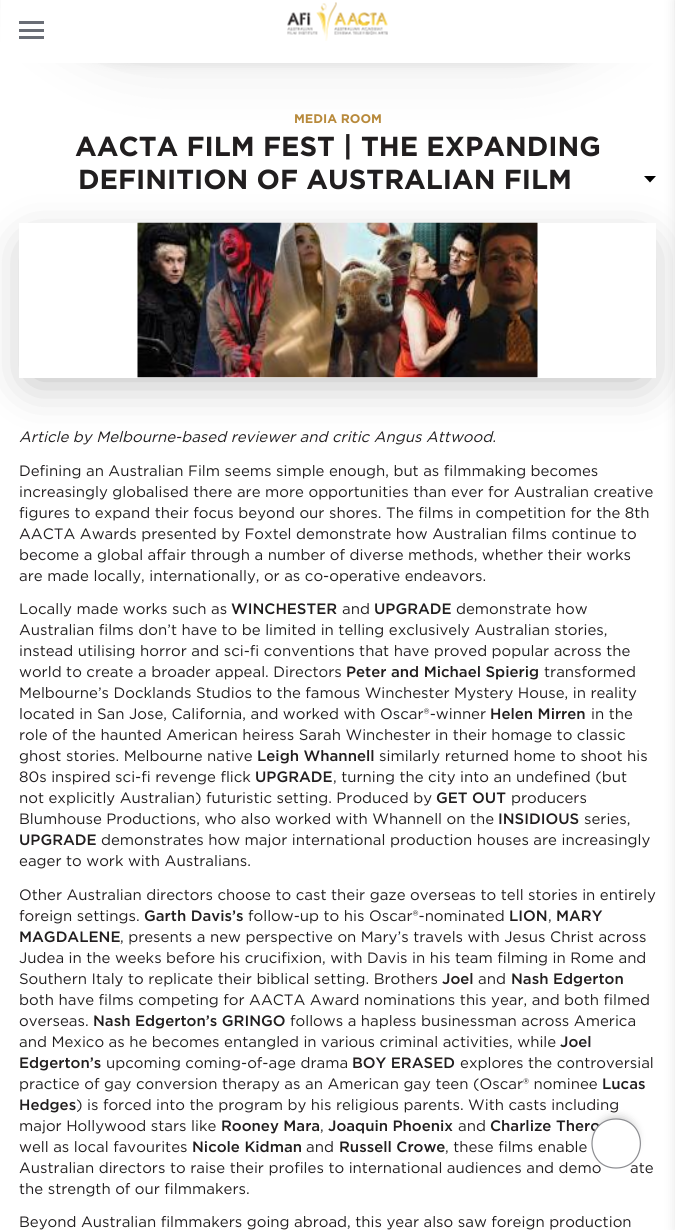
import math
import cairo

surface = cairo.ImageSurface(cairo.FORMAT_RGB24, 675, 1230)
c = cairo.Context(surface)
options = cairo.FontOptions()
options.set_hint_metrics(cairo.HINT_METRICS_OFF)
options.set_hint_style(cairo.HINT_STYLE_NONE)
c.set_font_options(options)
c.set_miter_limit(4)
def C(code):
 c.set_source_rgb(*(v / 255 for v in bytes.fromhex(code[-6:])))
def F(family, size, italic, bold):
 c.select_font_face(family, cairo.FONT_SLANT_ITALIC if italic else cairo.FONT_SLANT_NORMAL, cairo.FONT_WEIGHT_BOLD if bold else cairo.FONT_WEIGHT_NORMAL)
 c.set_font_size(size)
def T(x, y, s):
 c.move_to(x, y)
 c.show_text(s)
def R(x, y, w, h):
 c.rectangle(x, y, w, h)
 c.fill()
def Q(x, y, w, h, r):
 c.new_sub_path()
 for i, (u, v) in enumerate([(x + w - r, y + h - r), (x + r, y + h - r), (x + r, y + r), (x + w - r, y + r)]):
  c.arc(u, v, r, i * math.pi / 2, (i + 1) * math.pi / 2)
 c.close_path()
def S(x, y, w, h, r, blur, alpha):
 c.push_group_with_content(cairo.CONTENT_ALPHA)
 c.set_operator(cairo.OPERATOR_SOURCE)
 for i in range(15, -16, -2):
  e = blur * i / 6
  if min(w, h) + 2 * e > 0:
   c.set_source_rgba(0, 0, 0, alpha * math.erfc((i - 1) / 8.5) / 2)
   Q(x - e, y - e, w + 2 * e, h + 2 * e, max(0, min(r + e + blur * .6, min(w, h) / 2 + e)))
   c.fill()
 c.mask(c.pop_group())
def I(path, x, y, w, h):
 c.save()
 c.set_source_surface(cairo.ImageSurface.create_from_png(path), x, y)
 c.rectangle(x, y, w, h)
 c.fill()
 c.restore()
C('ffffff')
c.paint()
C('000000')
S(0,-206,675,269,188,6,.1)
S(0,-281,675,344,188,31,.1)
C('ffffff')
R(1,0,673,63)
C('6a6e76')
R(19,29,25,3)
R(19,21,25,3)
R(19,36,25,3)
I('1.png',287,2,101,39)
F('Gotham',12.5,0,1)
C('b88a3c')
T(294,123,'MEDIA ROOM')
F('Gotham',27.5,0,1)
C('211e1f')
T(75,156,'AACTA FILM FEST | THE EXPANDING')
T(78,189,'DEFINITION OF AUSTRALIAN FILM')
C('000000')
c.new_path()
c.move_to(644,176)
c.line_to(656,176)
c.line_to(650,182.5)
c.close_path()
c.fill()
c.save()
c.set_fill_rule(cairo.FILL_RULE_EVEN_ODD)
c.new_path()
c.move_to(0,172)
c.line_to(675,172)
c.line_to(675,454)
c.line_to(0,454)
c.close_path()
c.move_to(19,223)
c.line_to(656,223)
c.line_to(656,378)
c.line_to(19,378)
c.close_path()
c.clip()
C('000000')
S(31,248,613,130,0,25,.3)
c.restore()
I('2.png',137,222,401,156)
F('Gotham',15,1,0)
C('211e1f')
T(19,442,'Article by Melbourne-based reviewer and critic Angus Attwood.')
F('Gotham',15,0,0)
T(19,476,'Defining an Australian Film seems simple enough, but as filmmaking becomes')
T(19,497,'increasingly globalised there are more opportunities than ever for Australian creative')
T(19,518,'figures to expand their focus beyond our shores. The films in competition for the 8th')
T(19,539,'AACTA Awards presented by Foxtel demonstrate how Australian films continue to')
T(19,560,'become a global affair through a number of diverse methods, whether their works')
T(19,581,'are made locally, internationally, or as co-operative endeavors.')
T(19,614,'Locally made works such as')
F('Gotham Medium',15,0,0)
T(231,614,'WINCHESTER')
F('Gotham',15,0,0)
T(342,614,'and')
F('Gotham Medium',15,0,0)
T(374,614,'UPGRADE')
F('Gotham',15,0,0)
T(456,614,'demonstrate how')
T(19,635,'Australian films don’t have to be limited in telling exclusively Australian stories,')
T(19,656,'instead utilising horror and sci-fi conventions that have proved popular across the')
T(19,677,'world to create a broader appeal. Directors')
F('Gotham Medium',15,0,0)
T(346,677,'Peter and Michael Spierig')
F('Gotham',15,0,0)
T(544,677,'transformed')
T(19,698,'Melbourne’s Docklands Studios to the famous Winchester Mystery House, in reality')
T(19,719,'located in San Jose, California, and worked with Oscar®-winner')
F('Gotham Medium',15,0,0)
T(490,719,'Helen Mirren')
F('Gotham',15,0,0)
T(591,719,'in the')
T(19,740,'role of the haunted American heiress Sarah Winchester in their homage to classic')
T(19,761,'ghost stories. Melbourne native')
F('Gotham Medium',15,0,0)
T(257,761,'Leigh Whannell')
F('Gotham',15,0,0)
T(379,761,'similarly returned home to shoot his')
T(19,782,'80s inspired sci-fi revenge flick')
F('Gotham Medium',15,0,0)
T(255,782,'UPGRADE')
F('Gotham',15,0,0)
T(333,782,', turning the city into an undefined (but')
T(19,803,'not explicitly Australian) futuristic setting. Produced by')
F('Gotham Medium',15,0,0)
T(436,803,'GET OUT')
F('Gotham',15,0,0)
T(511,803,'producers')
T(19,824,'Blumhouse Productions, who also worked with Whannell on the')
F('Gotham Medium',15,0,0)
T(498,824,'INSIDIOUS')
F('Gotham',15,0,0)
T(584,824,'series,')
F('Gotham Medium',15,0,0)
T(19,845,'UPGRADE')
F('Gotham',15,0,0)
T(101,845,'demonstrates how major international production houses are increasingly')
T(19,866,'eager to work with Australians.')
T(19,900,'Other Australian directors choose to cast their gaze overseas to tell stories in entirely')
T(19,921,'foreign settings.')
F('Gotham Medium',15,0,0)
T(144,921,'Garth Davis’s')
F('Gotham',15,0,0)
T(248,921,'follow-up to his Oscar®-nominated')
F('Gotham Medium',15,0,0)
T(509,921,'LION')
F('Gotham',15,0,0)
T(548,921,',')
F('Gotham Medium',15,0,0)
T(556,921,'MARY')
T(19,942,'MAGDALENE')
F('Gotham',15,0,0)
T(120,942,', presents a new perspective on Mary’s travels with Jesus Christ across')
T(19,963,'Judea in the weeks before his crucifixion, with Davis in his team filming in Rome and')
T(19,984,'Southern Italy to replicate their biblical setting. Brothers')
F('Gotham Medium',15,0,0)
T(442,984,'Joel')
F('Gotham',15,0,0)
T(478,984,'and')
F('Gotham Medium',15,0,0)
T(511,984,'Nash Edgerton')
F('Gotham',15,0,0)
T(19,1005,'both have films competing for AACTA Award nominations this year, and both filmed')
T(19,1026,'overseas.')
F('Gotham Medium',15,0,0)
T(93,1026,'Nash Edgerton’s GRINGO')
F('Gotham',15,0,0)
T(290,1026,'follows a hapless businessman across America')
T(19,1047,'and Mexico as he becomes entangled in various criminal activities, while')
F('Gotham Medium',15,0,0)
T(560,1047,'Joel')
T(19,1068,'Edgerton’s')
F('Gotham',15,0,0)
T(106,1068,'upcoming coming-of-age drama')
F('Gotham Medium',15,0,0)
T(352,1068,'BOY ERASED')
F('Gotham',15,0,0)
T(460,1068,'explores the controversial')
T(19,1089,'practice of gay conversion therapy as an American gay teen (Oscar® nominee')
F('Gotham Medium',15,0,0)
T(602,1089,'Lucas')
T(19,1110,'Hedges')
F('Gotham',15,0,0)
T(76,1110,') is forced into the program by his religious parents. With casts including')
T(19,1131,'major Hollywood stars like')
F('Gotham Medium',15,0,0)
T(221,1131,'Rooney Mara')
F('Gotham',15,0,0)
T(320,1131,',')
F('Gotham Medium',15,0,0)
T(328,1131,'Joaquin Phoenix')
F('Gotham',15,0,0)
T(458,1131,'and')
F('Gotham Medium',15,0,0)
T(490,1131,'Charlize Thero')
F('Gotham',15,0,0)
T(19,1152,'well as local favourites')
F('Gotham Medium',15,0,0)
T(192,1152,'Nicole Kidman')
F('Gotham',15,0,0)
T(306,1152,'and')
F('Gotham Medium',15,0,0)
T(339,1152,'Russell Crowe')
F('Gotham',15,0,0)
T(445,1152,', these films enable')
T(19,1173,'Australian directors to raise their profiles to international audiences and demo')
T(630,1173,'ate')
T(19,1194,'the strength of our filmmakers.')
T(19,1227,'Beyond Australian filmmakers going abroad, this year also saw foreign production')
C('000000')
S(675,0,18,1230,0,6,.1)
S(598,1119,37,37,18.5,5,.3)
C('ffffff')
c.new_path()
c.move_to(616,1169)
c.curve_to(649,1169,649,1119,616,1119)
c.curve_to(583,1119,583,1169,616,1169)
c.close_path()
c.fill()
c.new_path()
c.move_to(616,1168)
c.curve_to(648.5,1168,648.5,1119,616,1119)
c.curve_to(584,1119,584,1168,616,1168)
c.close_path()
C('8b8c90')
c.set_line_width(1.2)
c.stroke()
surface.write_to_png('o.png')
